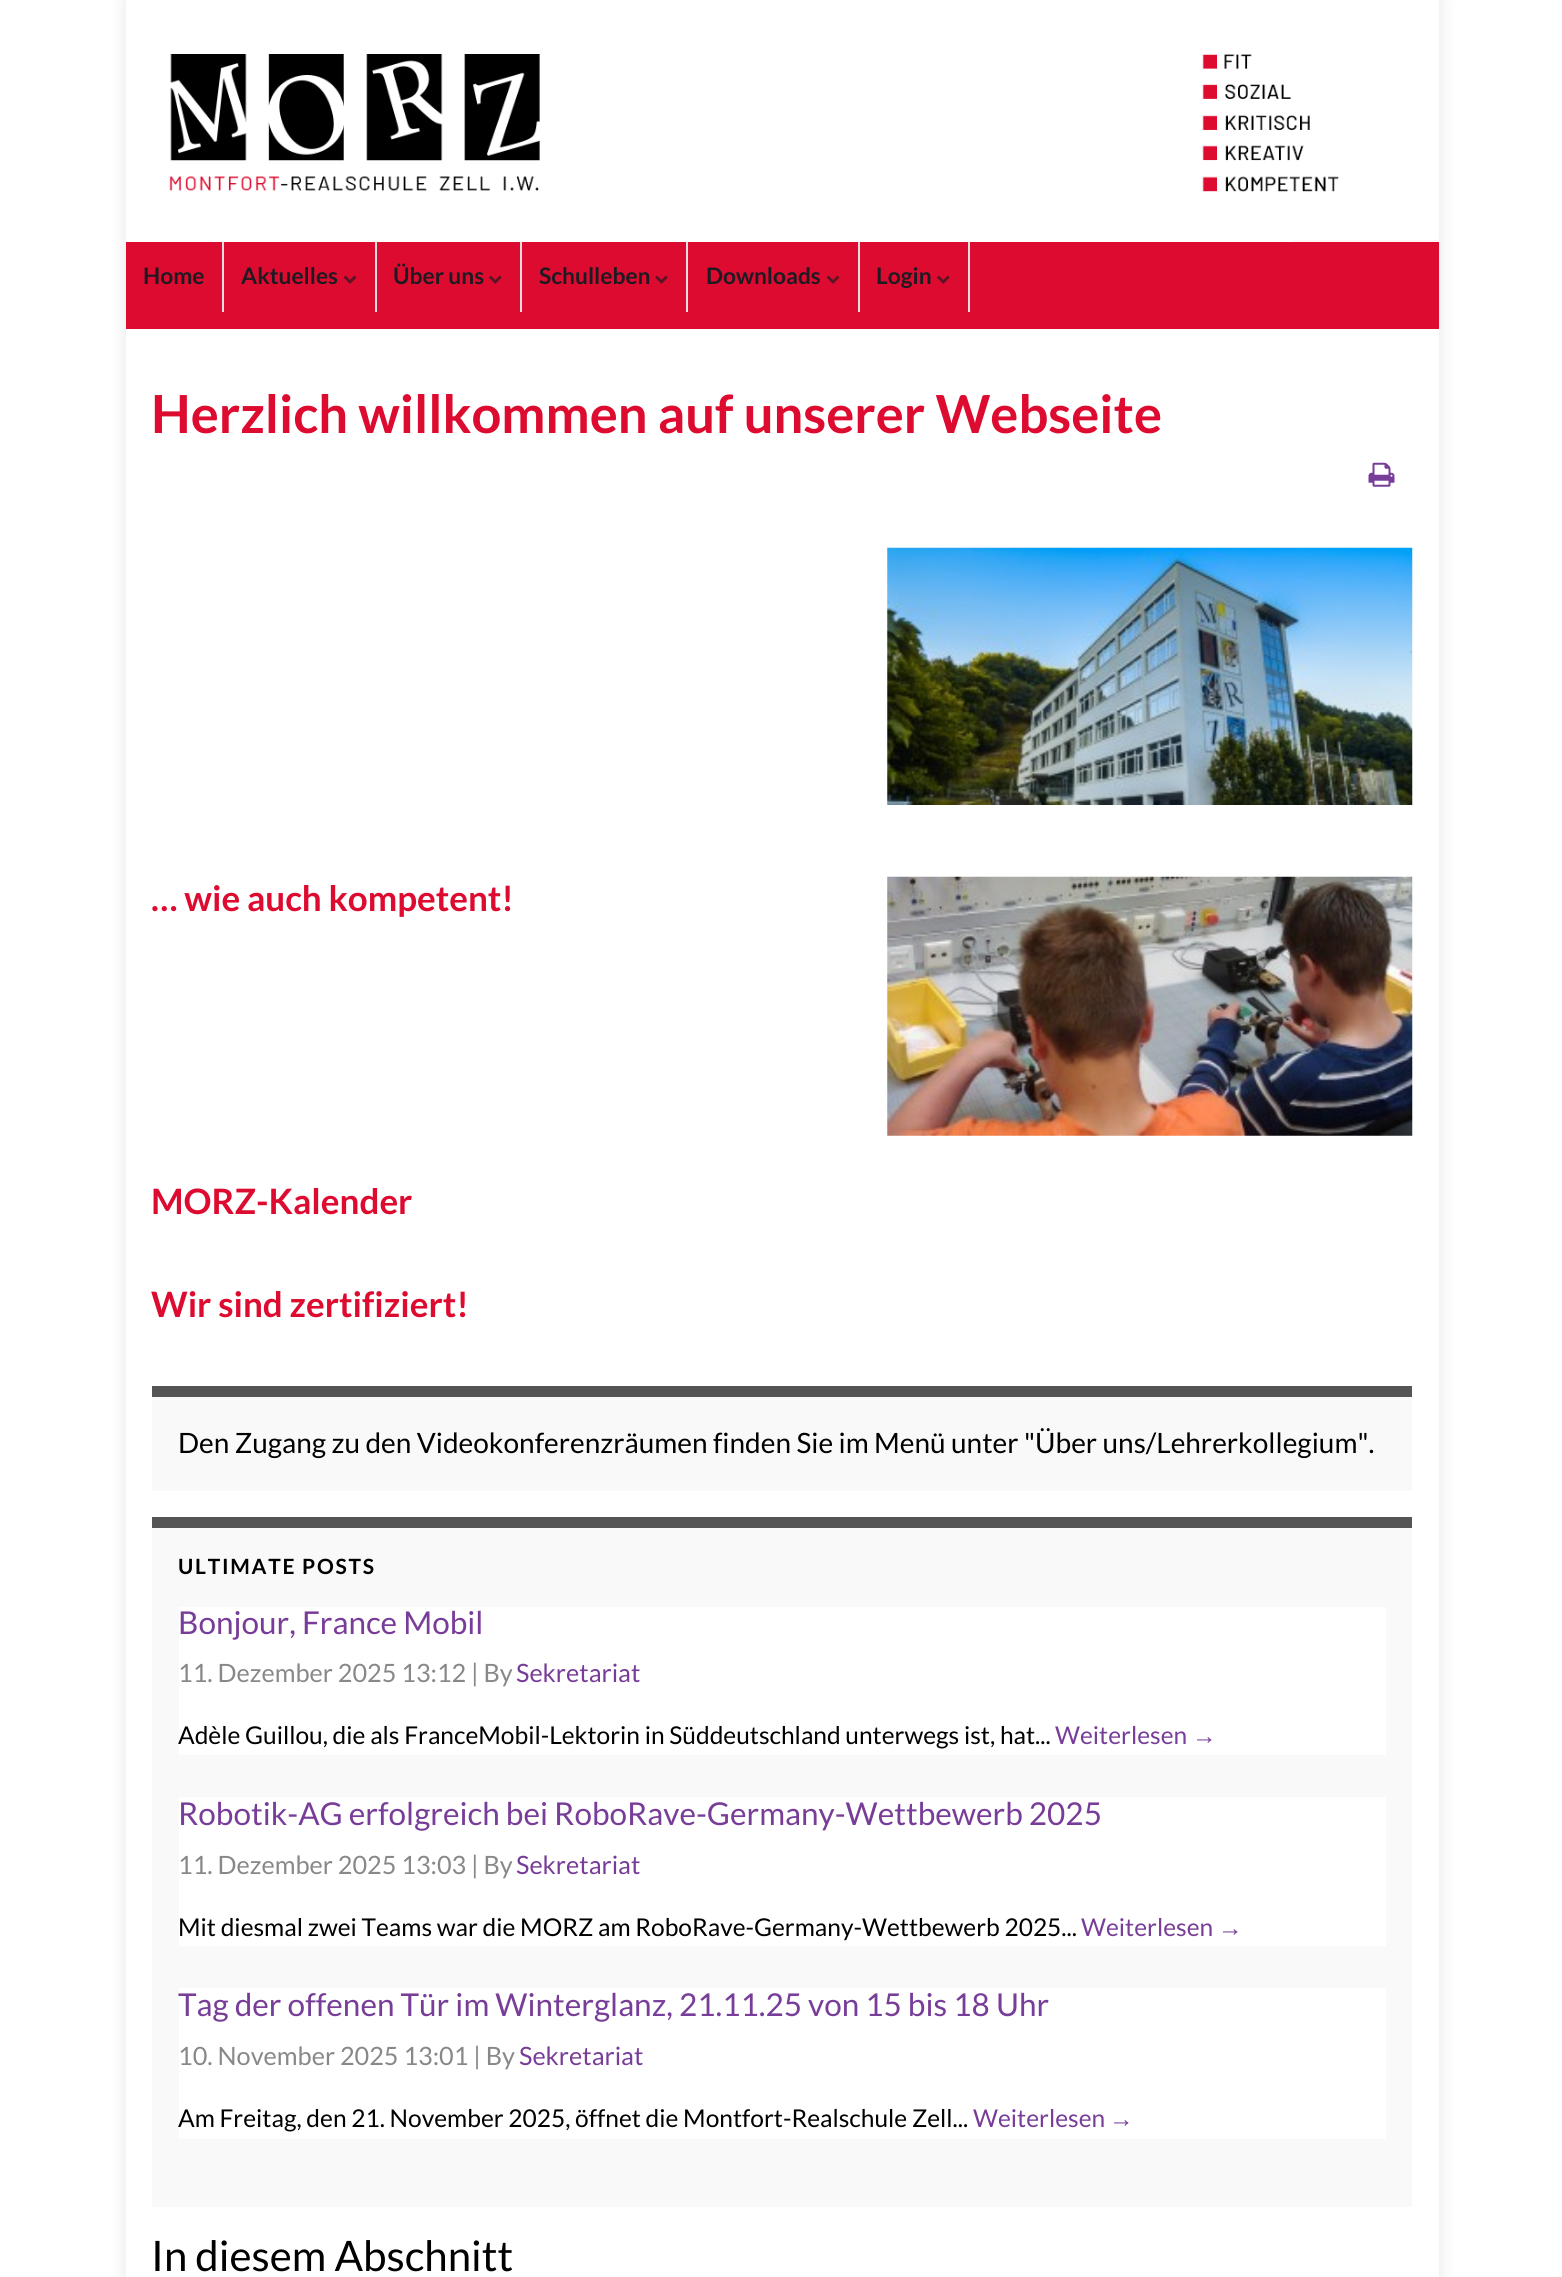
import math
import cairo

surface = cairo.ImageSurface(cairo.FORMAT_RGB24, 1562, 2277)
c = cairo.Context(surface)
options = cairo.FontOptions()
options.set_hint_metrics(cairo.HINT_METRICS_OFF)
options.set_hint_style(cairo.HINT_STYLE_NONE)
c.set_font_options(options)
c.set_miter_limit(4)
def C(code):
 c.set_source_rgb(*(v / 255 for v in bytes.fromhex(code[-6:])))
def F(family, size, italic, bold):
 c.select_font_face(family, cairo.FONT_SLANT_ITALIC if italic else cairo.FONT_SLANT_NORMAL, cairo.FONT_WEIGHT_BOLD if bold else cairo.FONT_WEIGHT_NORMAL)
 c.set_font_size(size)
def T(x, y, s):
 c.move_to(x, y)
 c.show_text(s)
def L(x, y, s, letter, word):
 c.move_to(x, y)
 for ch in s:
  c.show_text(ch)
  c.rel_move_to(letter + word * (ch == ' '), 0)
def R(x, y, w, h):
 c.rectangle(x, y, w, h)
 c.fill()
def Q(x, y, w, h, r):
 c.new_sub_path()
 for i, (u, v) in enumerate([(x + w - r, y + h - r), (x + r, y + h - r), (x + r, y + r), (x + w - r, y + r)]):
  c.arc(u, v, r, i * math.pi / 2, (i + 1) * math.pi / 2)
 c.close_path()
def S(x, y, w, h, r, blur, alpha):
 c.push_group_with_content(cairo.CONTENT_ALPHA)
 c.set_operator(cairo.OPERATOR_SOURCE)
 for i in range(15, -16, -2):
  e = blur * i / 6
  if min(w, h) + 2 * e > 0:
   c.set_source_rgba(0, 0, 0, alpha * math.erfc((i - 1) / 8.5) / 2)
   Q(x - e, y - e, w + 2 * e, h + 2 * e, max(0, min(r + e + blur * .6, min(w, h) / 2 + e)))
   c.fill()
 c.mask(c.pop_group())
def I(path, x, y, w, h):
 c.save()
 c.set_source_surface(cairo.ImageSurface.create_from_png(path), x, y)
 c.rectangle(x, y, w, h)
 c.fill()
 c.restore()
C('ffffff')
c.paint()
C('000000')
S(126,0,1313,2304,0,9,.1)
C('ffffff')
R(126,0,1313,242)
I('1.png',169,54,1269,188)
C('dd0b2f')
R(126,242,1313,87)
C('dddddd')
R(222,242,2,70)
F('Lato',22.75,0,1)
C('1f1a22')
T(143,284,'Home')
C('dddddd')
R(375,242,2,70)
C('1f1a22')
T(241,284,'Aktuelles')
I('2.png',343,275,14,9)
C('dddddd')
R(520,242,2,70)
C('1f1a22')
T(393,284,'Über uns')
I('3.png',489,275,13,9)
C('dddddd')
R(686,242,2,70)
C('1f1a22')
T(539,284,'Schulleben')
I('4.png',655,275,13,9)
C('dddddd')
R(858,242,2,70)
C('1f1a22')
T(706,284,'Downloads')
I('2.png',826,275,14,9)
C('dddddd')
R(968,242,2,70)
C('1f1a22')
T(876,284,'Login')
I('3.png',937,275,13,9)
C('ffffff')
R(126,329,1313,1948)
F('Lato',52.5,0,1)
C('dd0b2f')
T(151,433,'Herzlich willkommen auf unserer Webseite')
I('5.png',1368,462,27,25)
I('6.png',887,547,526,258)
F('Lato',35,0,1)
T(151,911,'… wie auch kompetent!')
I('7.png',887,876,526,260)
T(151,1214,'MORZ-Kalender')
T(151,1317,'Wir sind zertifiziert!')
C('f9f9f9')
R(152,1397,1260,94)
C('555555')
R(152,1386,1260,11)
F('Lato',28,0,0)
C('000000')
T(178,1453,'Den Zugang zu den Videokonferenzräumen finden Sie im Menü unter "Über uns/Lehrerkollegium".')
C('f9f9f9')
R(152,1528,1260,679)
C('555555')
R(152,1517,1260,11)
F('Lato',21,0,1)
C('000000')
L(178,1574,'ULTIMATE POSTS',1.75,0)
C('ffffff')
R(179,1607,1207,148)
F('Lato',31.5,0,0)
C('783d98')
T(178,1634,'Bonjour, France Mobil')
F('Lato',25.25,0,0)
C('888888')
T(178,1682,'11. Dezember 2025 13:12 | By')
C('783d98')
T(516,1682,'Sekretariat')
F('Lato',24.5,0,0)
C('000000')
T(178,1744,'Adèle Guillou, die als FranceMobil-Lektorin in Süddeutschland unterwegs ist, hat...')
C('783d98')
T(1055,1744,'Weiterlesen')
F('Liberation Sans',24.5,0,0)
T(1192,1744,'→')
C('ffffff')
R(179,1797,1207,149)
F('Lato',31.5,0,0)
C('783d98')
T(178,1825,'Robotik-AG erfolgreich bei RoboRave-Germany-Wettbewerb 2025')
F('Lato',25.25,0,0)
C('888888')
T(178,1874,'11. Dezember 2025 13:03 | By')
C('783d98')
T(516,1874,'Sekretariat')
F('Lato',24.5,0,0)
C('000000')
T(178,1936,'Mit diesmal zwei Teams war die MORZ am RoboRave-Germany-Wettbewerb 2025...')
C('783d98')
T(1081,1936,'Weiterlesen')
F('Liberation Sans',24.5,0,0)
T(1218,1936,'→')
C('ffffff')
R(179,1988,1207,151)
F('Lato',31.5,0,0)
C('783d98')
T(178,2016,'Tag der offenen Tür im Winterglanz, 21.11.25 von 15 bis 18 Uhr')
F('Lato',25.25,0,0)
C('888888')
T(178,2065,'10. November 2025 13:01 | By')
C('783d98')
T(519,2065,'Sekretariat')
F('Lato',24.5,0,0)
C('000000')
T(178,2127,'Am Freitag, den 21. November 2025, öffnet die Montfort-Realschule Zell...')
C('783d98')
T(973,2127,'Weiterlesen')
F('Liberation Sans',24.5,0,0)
T(1109,2127,'→')
F('Lato',42,0,0)
C('000000')
T(151,2271,'In diesem Abschnitt')
surface.write_to_png('o.png')
